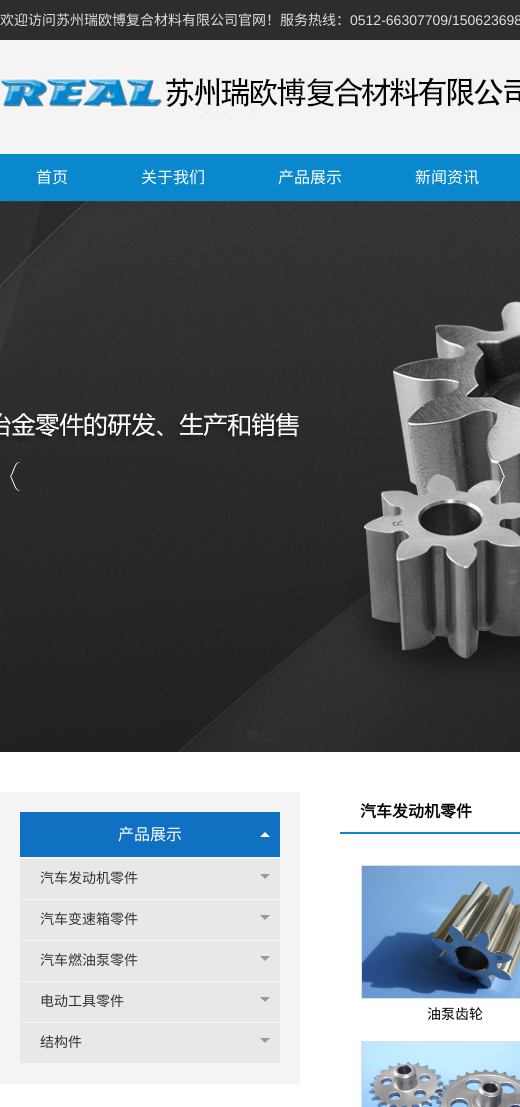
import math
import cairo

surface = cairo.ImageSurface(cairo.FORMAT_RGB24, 520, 1107)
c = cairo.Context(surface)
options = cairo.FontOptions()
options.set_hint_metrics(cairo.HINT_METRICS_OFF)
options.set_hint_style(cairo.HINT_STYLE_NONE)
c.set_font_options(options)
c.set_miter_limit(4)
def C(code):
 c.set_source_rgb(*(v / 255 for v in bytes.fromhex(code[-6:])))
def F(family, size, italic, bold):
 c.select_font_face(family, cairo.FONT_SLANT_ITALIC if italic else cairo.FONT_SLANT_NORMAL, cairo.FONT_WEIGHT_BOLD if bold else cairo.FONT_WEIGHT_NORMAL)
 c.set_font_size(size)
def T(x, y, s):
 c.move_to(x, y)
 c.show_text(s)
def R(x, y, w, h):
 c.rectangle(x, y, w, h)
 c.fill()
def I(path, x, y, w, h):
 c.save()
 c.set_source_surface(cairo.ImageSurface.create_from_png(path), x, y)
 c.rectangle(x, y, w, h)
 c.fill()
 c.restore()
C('ffffff')
c.paint()
C('2d2d2d')
R(0,0,520,40)
F('Noto Sans CJK SC',14,0,0)
C('dfdfdf')
T(0,25,'欢迎访问苏州瑞欧博复合材料有限公司官网！服务热线：')
F('Liberation Sans',14,0,0)
T(350,25,'0512-66307709/150623698')
C('f4f4f4')
R(0,40,520,114)
I('1.png',0,72,520,41)
C('0988ce')
R(0,154,520,47)
F('Noto Sans CJK SC',16,0,0)
C('ffffff')
T(36,183,'首页')
T(141,183,'关于我们')
T(278,183,'产品展示')
T(415,183,'新闻资讯')
I('2.png',0,201,520,551)
I('3.png',246,730,12,11)
I('4.png',262,730,11,11)
I('5.png',10,462,11,29)
I('6.png',495,462,10,29)
C('f5f5f5')
R(0,792,300,292)
C('1071c2')
R(20,812,260,45)
C('ffffff')
T(118,840,'产品展示')
c.new_path()
c.move_to(270,837)
c.line_to(260,837)
c.line_to(265,832)
c.close_path()
c.fill()
C('e8e8e8')
R(20,859,260,40)
F('Noto Sans CJK SC',14,0,0)
C('333333')
T(40,883,'汽车发动机零件')
C('999999')
c.new_path()
c.move_to(260,874)
c.line_to(270,874)
c.line_to(265,879)
c.close_path()
c.fill()
C('e8e8e8')
R(20,900,260,40)
C('333333')
T(40,924,'汽车变速箱零件')
C('999999')
c.new_path()
c.move_to(260,915)
c.line_to(270,915)
c.line_to(265,920)
c.close_path()
c.fill()
C('e8e8e8')
R(20,941,260,40)
C('333333')
T(40,965,'汽车燃油泵零件')
C('999999')
c.new_path()
c.move_to(260,956)
c.line_to(270,956)
c.line_to(265,961)
c.close_path()
c.fill()
C('e8e8e8')
R(20,982,260,40)
C('333333')
T(40,1006,'电动工具零件')
C('999999')
c.new_path()
c.move_to(260,997)
c.line_to(270,997)
c.line_to(265,1002)
c.close_path()
c.fill()
C('e8e8e8')
R(20,1023,260,40)
C('333333')
T(40,1047,'结构件')
C('999999')
c.new_path()
c.move_to(260,1038)
c.line_to(270,1038)
c.line_to(265,1043)
c.close_path()
c.fill()
C('0988ce')
R(340,832,180,2)
F('Noto Sans CJK SC',16,0,1)
C('000000')
T(360,817,'汽车发动机零件')
c.rectangle(361.5,865.5,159,133)
C('dfdfdf')
c.set_line_width(1)
c.stroke()
I('7.png',362,866,158,132)
F('Noto Sans CJK SC',14,0,0)
C('000000')
T(427,1019,'油泵齿轮')
c.rectangle(361.5,1041.5,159,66)
C('dfdfdf')
c.stroke()
I('8.png',362,1042,158,65)
surface.write_to_png('o.png')
